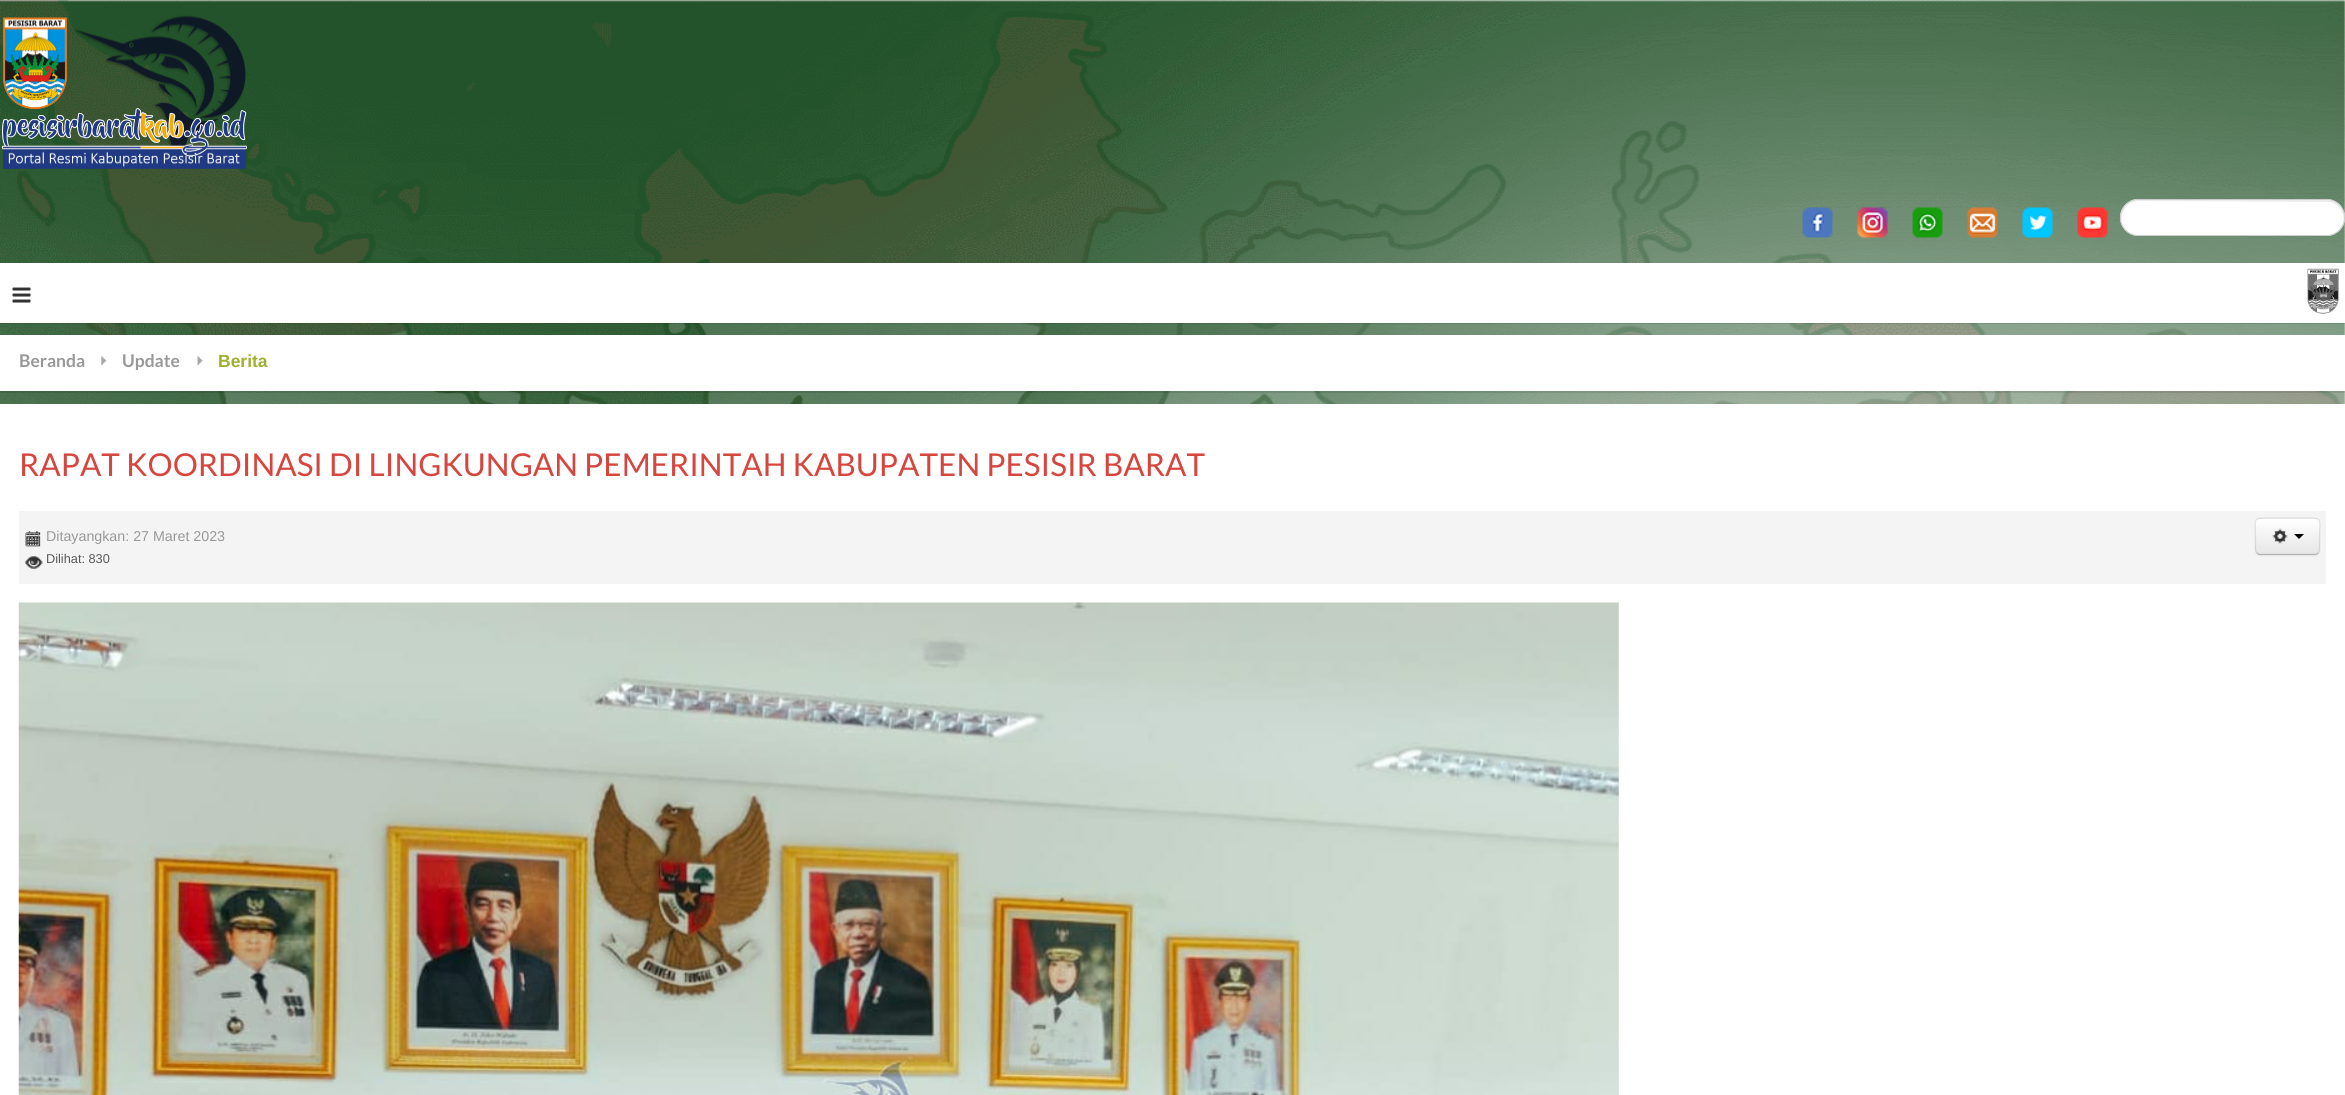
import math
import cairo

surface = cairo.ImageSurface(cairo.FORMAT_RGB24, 2345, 1095)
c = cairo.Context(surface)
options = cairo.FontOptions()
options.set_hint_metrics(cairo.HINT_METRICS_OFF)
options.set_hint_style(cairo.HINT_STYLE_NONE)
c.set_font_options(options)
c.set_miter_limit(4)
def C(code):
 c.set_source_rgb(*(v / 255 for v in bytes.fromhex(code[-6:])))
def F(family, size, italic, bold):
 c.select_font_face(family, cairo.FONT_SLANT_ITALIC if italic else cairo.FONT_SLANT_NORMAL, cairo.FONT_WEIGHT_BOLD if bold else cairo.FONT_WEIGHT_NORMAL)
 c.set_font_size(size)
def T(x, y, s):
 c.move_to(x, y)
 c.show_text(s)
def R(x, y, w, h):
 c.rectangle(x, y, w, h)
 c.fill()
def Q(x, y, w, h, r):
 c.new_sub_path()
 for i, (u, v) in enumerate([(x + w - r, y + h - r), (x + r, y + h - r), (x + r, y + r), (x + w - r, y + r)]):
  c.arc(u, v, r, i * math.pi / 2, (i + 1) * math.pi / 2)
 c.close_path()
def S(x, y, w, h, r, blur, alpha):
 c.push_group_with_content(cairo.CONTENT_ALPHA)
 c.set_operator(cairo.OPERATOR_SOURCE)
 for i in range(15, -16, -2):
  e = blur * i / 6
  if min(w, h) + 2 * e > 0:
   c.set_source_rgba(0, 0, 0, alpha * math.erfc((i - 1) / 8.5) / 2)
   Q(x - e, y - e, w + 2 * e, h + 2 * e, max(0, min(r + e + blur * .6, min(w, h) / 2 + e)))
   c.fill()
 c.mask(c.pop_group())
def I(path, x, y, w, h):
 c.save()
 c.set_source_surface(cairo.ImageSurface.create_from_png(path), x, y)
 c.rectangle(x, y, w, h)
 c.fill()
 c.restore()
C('ffffff')
c.paint()
I('1.png',2344,0,1,404)
I('2.png',0,0,2345,404)
I('3.png',1,15,246,154)
I('4.png',1802,207,31,31)
I('5.png',1857,207,31,31)
I('6.png',1912,207,31,31)
I('7.png',1967,207,31,31)
I('8.png',2022,207,31,31)
I('9.png',2077,207,31,31)
C('ffffff')
Q(2120,199,225,37,18.5)
c.fill()
C('ececec')
c.new_path()
c.move_to(2139,201)
c.line_to(2330,202)
c.curve_to(2340,204,2345,214,2343,223)
c.line_to(2344,218)
c.curve_to(2344,208,2336,200,2326,200)
c.line_to(2138,200)
c.curve_to(2129,200,2121,208,2121,218)
c.line_to(2122,223)
c.curve_to(2120,213,2126,201,2139,201)
c.close_path()
c.fill()
Q(2120.5,199.5,224,36,18)
C('cccccc')
c.set_line_width(1)
c.stroke()
c.set_source_rgba(0,0,0,0.1)
R(0,323,2345,1)
C('ffffff')
R(0,263,2345,60)
I('10.png',12,287,19,16)
I('11.png',2307,268,32,46)
c.set_source_rgba(0,0,0,0.1)
R(0,391,2345,2)
C('ffffff')
R(0,335,2345,56)
I('12.png',101,356,6,10)
F('Lato',17.5,0,1)
C('999999')
T(19,367,'Beranda')
I('13.png',197,356,6,10)
T(122,367,'Update')
F('Liberation Sans',17.5,0,1)
C('9faf30')
T(218,367,'Berita')
F('Lato',31.5,0,0)
C('d6463f')
T(19,476,'RAPAT KOORDINASI DI LINGKUNGAN PEMERINTAH KABUPATEN PESISIR BARAT')
C('f4f4f4')
R(19,511,2307,73)
I('14.png',26,531,15,16)
I('15.png',25,531,15,15)
F('Liberation Sans',14.25,0,0)
C('999999')
T(46,541,'Ditayangkan: 27 Maret 2023')
I('16.png',25,556,18,13)
F('Liberation Sans',12.75,0,0)
C('595959')
T(46,563,'Dilihat: 830')
C('000000')
S(2255,519,65,37,5,1,.05)
C('f5f5f5')
Q(2255,518,65,37,5)
c.fill()
c.save()
Q(2255,518,65,37,5)
c.clip()
gradient = cairo.LinearGradient(2288,519,2288,554)
gradient.add_color_stop_rgba(0,1,1,1,1)
gradient.add_color_stop_rgba(1,0.902,0.902,0.902,1)
c.set_source(gradient)
R(2255,519,65,35)
c.restore()
c.new_path()
c.move_to(2318,553)
c.curve_to(2317.5,554,2316,554.5,2315,554.5)
c.line_to(2260,554.5)
c.curve_to(2259,554.5,2257.5,554,2257,553)
C('b3b3b3')
c.set_line_width(1.2)
c.stroke()
c.new_path()
c.move_to(2257,553)
c.curve_to(2255,551,2255.5,548,2255.5,545.5)
c.line_to(2255.5,536)
c.curve_to(2255.5,518.5,2252,518,2269,518)
c.line_to(2306,518)
c.curve_to(2323,518,2319.5,518.5,2319.5,536)
c.line_to(2319.5,545.5)
c.curve_to(2319.5,548,2320,551,2318,553)
c.set_source_rgba(0,0,0,0.1)
c.stroke()
I('17.png',2272,528,16,16)
C('000000')
c.new_path()
c.move_to(2294,534)
c.line_to(2304,534)
c.line_to(2299,539)
c.close_path()
c.fill()
I('18.png',18,602,1601,493)
surface.write_to_png('o.png')
